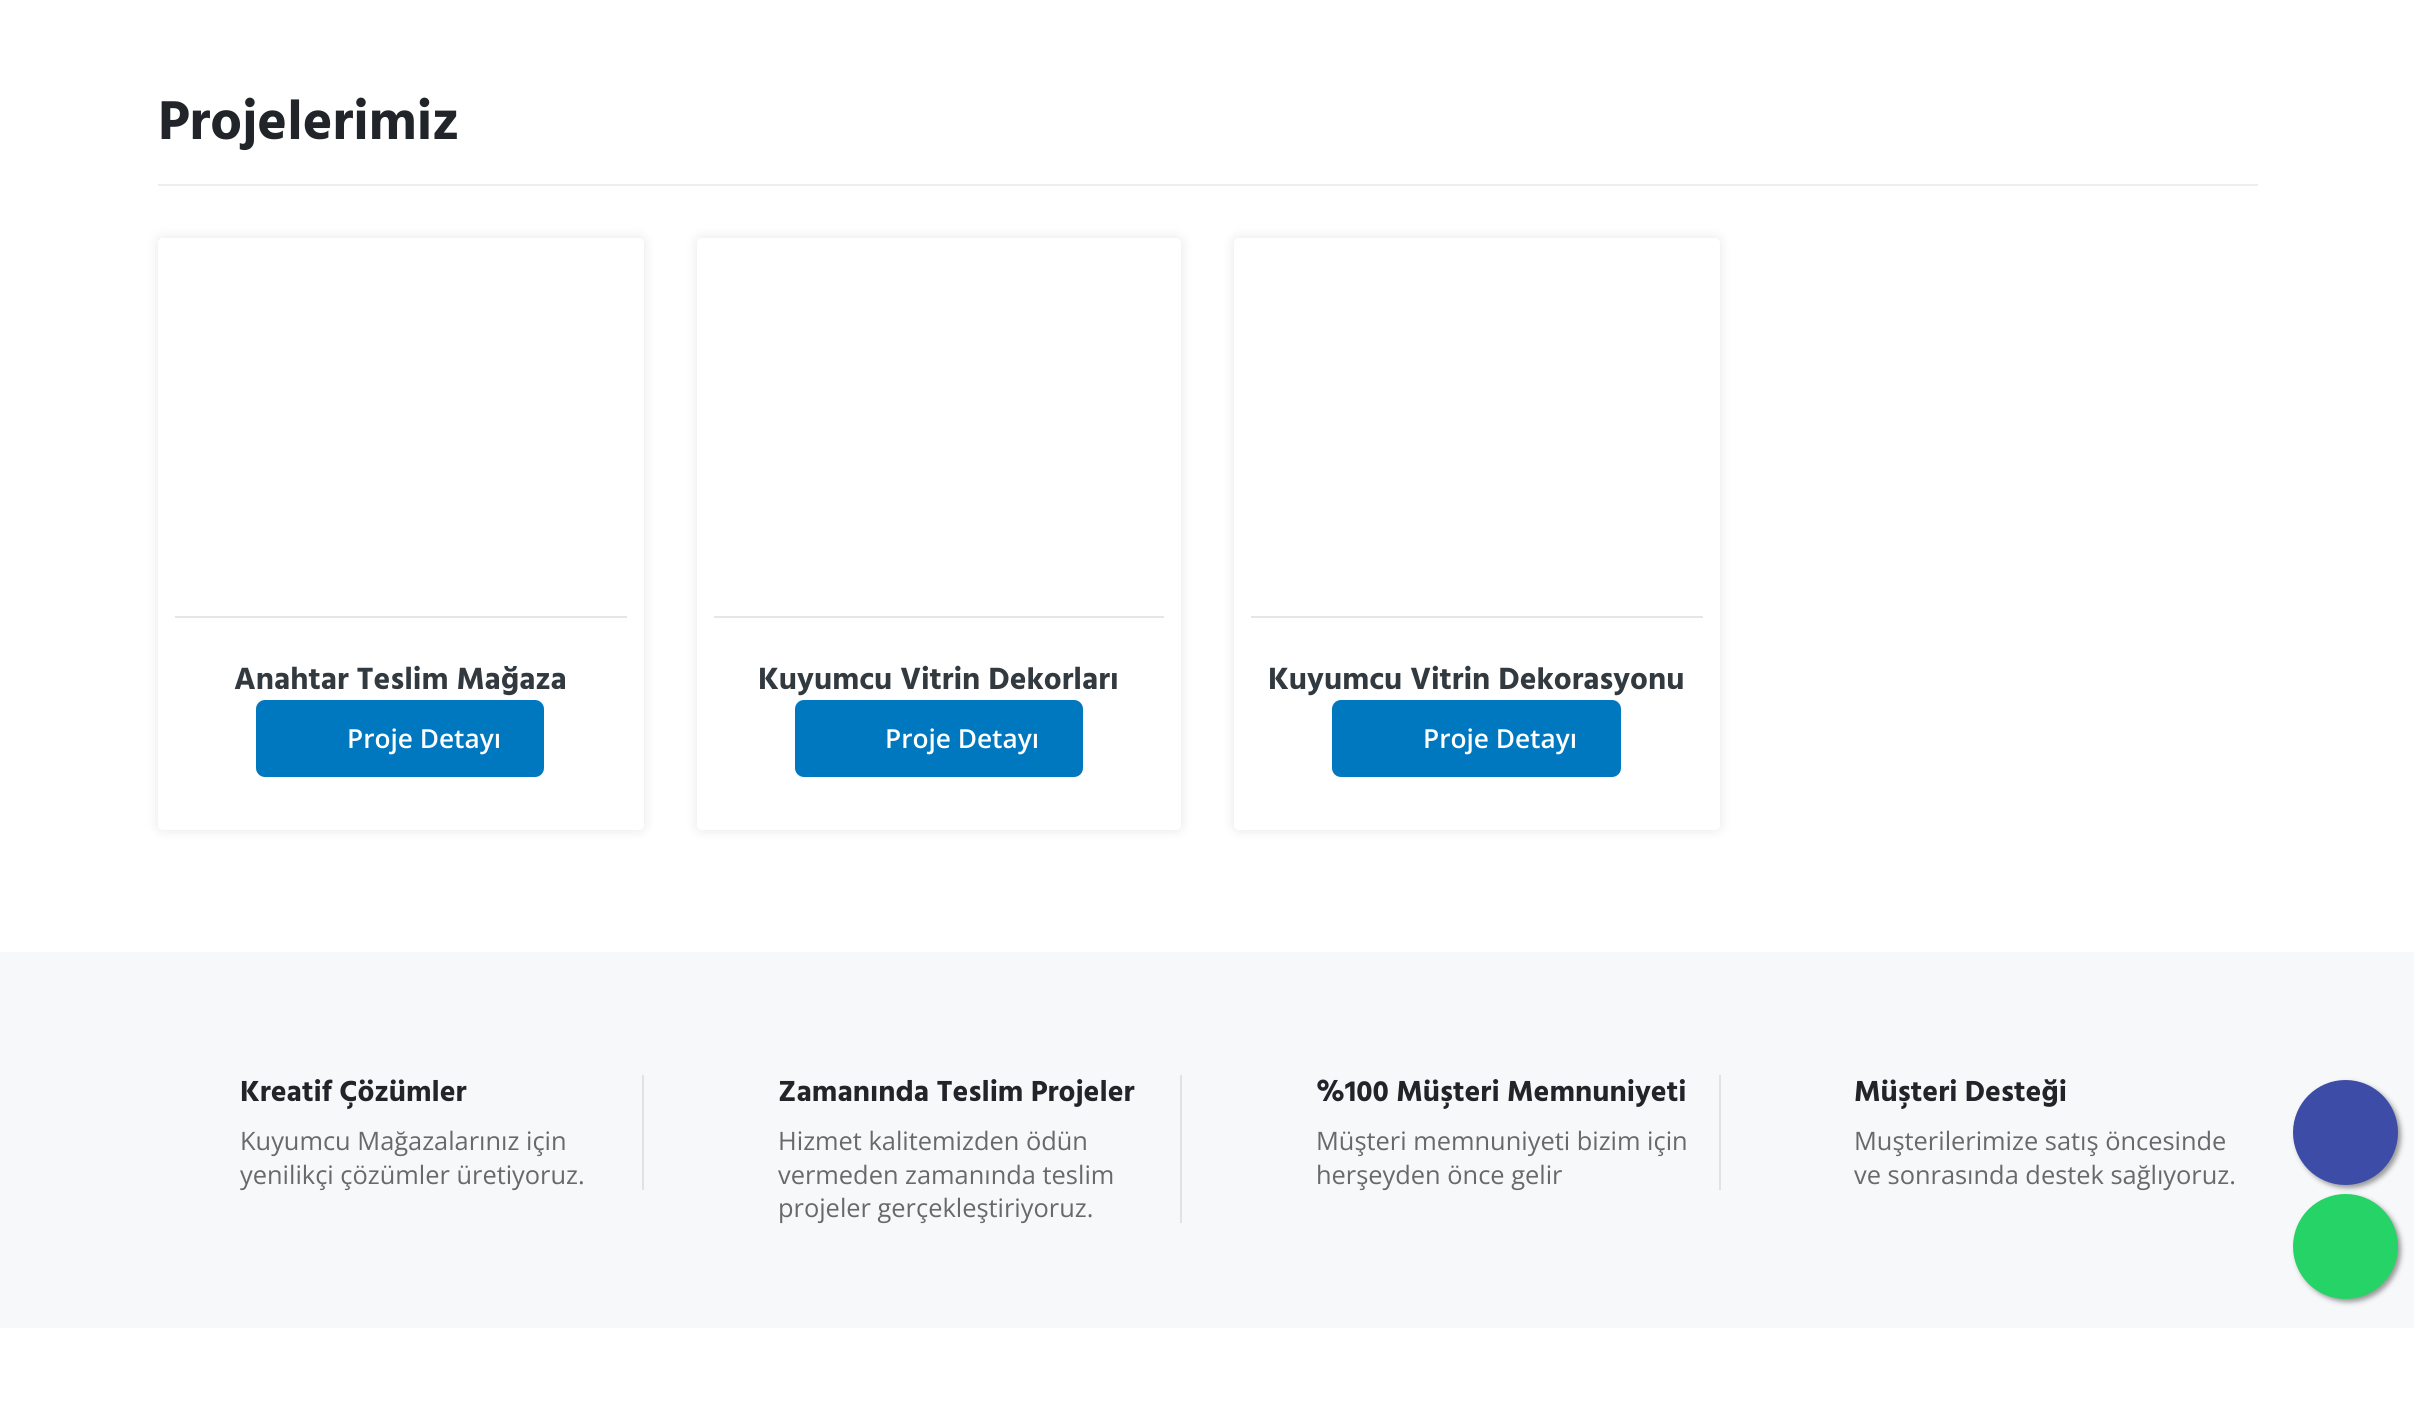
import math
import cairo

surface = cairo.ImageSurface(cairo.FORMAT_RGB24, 2414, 1421)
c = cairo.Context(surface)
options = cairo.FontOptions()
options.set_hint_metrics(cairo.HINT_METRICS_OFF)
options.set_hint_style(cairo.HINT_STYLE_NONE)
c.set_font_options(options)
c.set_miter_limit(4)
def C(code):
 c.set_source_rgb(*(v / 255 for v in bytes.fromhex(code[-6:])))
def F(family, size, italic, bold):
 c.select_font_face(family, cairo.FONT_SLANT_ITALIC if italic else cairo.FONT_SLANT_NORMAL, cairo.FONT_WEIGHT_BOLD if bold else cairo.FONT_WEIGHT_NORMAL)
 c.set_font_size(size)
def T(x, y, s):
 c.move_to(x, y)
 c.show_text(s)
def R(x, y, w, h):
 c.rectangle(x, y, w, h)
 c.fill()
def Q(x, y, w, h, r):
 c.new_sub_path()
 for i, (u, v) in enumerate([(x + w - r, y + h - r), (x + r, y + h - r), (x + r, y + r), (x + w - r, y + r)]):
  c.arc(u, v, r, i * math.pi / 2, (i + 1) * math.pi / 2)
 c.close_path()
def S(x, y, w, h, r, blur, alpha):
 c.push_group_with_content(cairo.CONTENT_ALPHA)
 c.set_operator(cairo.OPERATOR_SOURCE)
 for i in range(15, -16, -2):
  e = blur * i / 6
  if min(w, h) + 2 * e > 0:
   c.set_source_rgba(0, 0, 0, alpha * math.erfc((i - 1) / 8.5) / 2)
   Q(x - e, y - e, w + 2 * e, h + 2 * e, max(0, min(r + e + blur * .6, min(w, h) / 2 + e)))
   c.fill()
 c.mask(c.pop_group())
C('ffffff')
c.paint()
C('eeeeee')
R(158,184,2100,2)
F('Hind Siliguri',56,0,1)
C('212529')
T(158,139,'Projelerimiz')
C('000000')
S(158,238,486,592,5,6,.1)
C('ffffff')
Q(158,238,486,592,5)
c.fill()
C('e6e6e6')
R(175,616,452,2)
F('Hind Siliguri',31.5,0,1)
C('323a40')
T(234,689,'Anahtar Teslim Mağaza')
C('0078bf')
Q(256,700,288,77,9)
c.fill()
F('Open Sans SemiBold',26.25,0,0)
C('ffffff')
T(347,748,'Proje Detayı')
C('000000')
S(697,238,484,592,5,6,.1)
C('ffffff')
Q(697,238,484,592,5)
c.fill()
C('e6e6e6')
R(714,616,450,2)
F('Hind Siliguri',31.5,0,1)
C('323a40')
T(758,689,'Kuyumcu Vitrin Dekorları')
C('0078bf')
Q(795,700,288,77,9)
c.fill()
F('Open Sans SemiBold',26.25,0,0)
C('ffffff')
T(885,748,'Proje Detayı')
C('000000')
S(1234,238,486,592,5,6,.1)
C('ffffff')
Q(1234,238,486,592,5)
c.fill()
C('e6e6e6')
R(1251,616,452,2)
F('Hind Siliguri',31.5,0,1)
C('323a40')
T(1268,689,'Kuyumcu Vitrin Dekorasyonu')
C('0078bf')
Q(1332,700,289,77,9)
c.fill()
F('Open Sans SemiBold',26.25,0,0)
C('ffffff')
T(1423,748,'Proje Detayı')
C('f7f8fa')
R(0,952,2414,376)
C('e2e2e2')
R(642,1075,2,115)
F('Hind Siliguri',29.75,0,1)
C('212529')
T(240,1101,'Kreatif Çözümler')
F('Open Sans',25.4,0,0)
C('696969')
T(240,1150,'Kuyumcu Mağazalarınız için')
T(240,1184,'yenilikçi çözümler üretiyoruz.')
C('e2e2e2')
R(1180,1075,2,148)
F('Hind Siliguri',29.75,0,1)
C('212529')
T(778,1101,'Zamanında Teslim Projeler')
F('Open Sans',25.4,0,0)
C('696969')
T(778,1150,'Hizmet kalitemizden ödün')
T(778,1184,'vermeden zamanında teslim')
T(778,1217,'projeler gerçekleştiriyoruz.')
C('e2e2e2')
R(1719,1075,2,115)
F('Hind Siliguri',29.75,0,1)
C('212529')
T(1316,1101,'%100 Müşteri Memnuniyeti')
F('Open Sans',25.4,0,0)
C('696969')
T(1316,1150,'Müşteri memnuniyeti bizim için')
T(1316,1184,'herşeyden önce gelir')
F('Hind Siliguri',29.75,0,1)
C('212529')
T(1854,1101,'Müşteri Desteği')
F('Open Sans',25.4,0,0)
C('696969')
T(1854,1150,'Muşterilerimize satış öncesinde')
T(1854,1184,'ve sonrasında destek sağlıyoruz.')
C('999999')
S(2296,1197,105,105,52.5,2.5,1)
C('25d366')
c.arc(2345.5,1246.5,52.5,0,2 * math.pi)
c.fill()
C('999999')
S(2296,1083,105,105,52.5,2.5,1)
C('3d4ca7')
c.arc(2345.5,1132.5,52.5,0,2 * math.pi)
c.fill()
surface.write_to_png('o.png')
